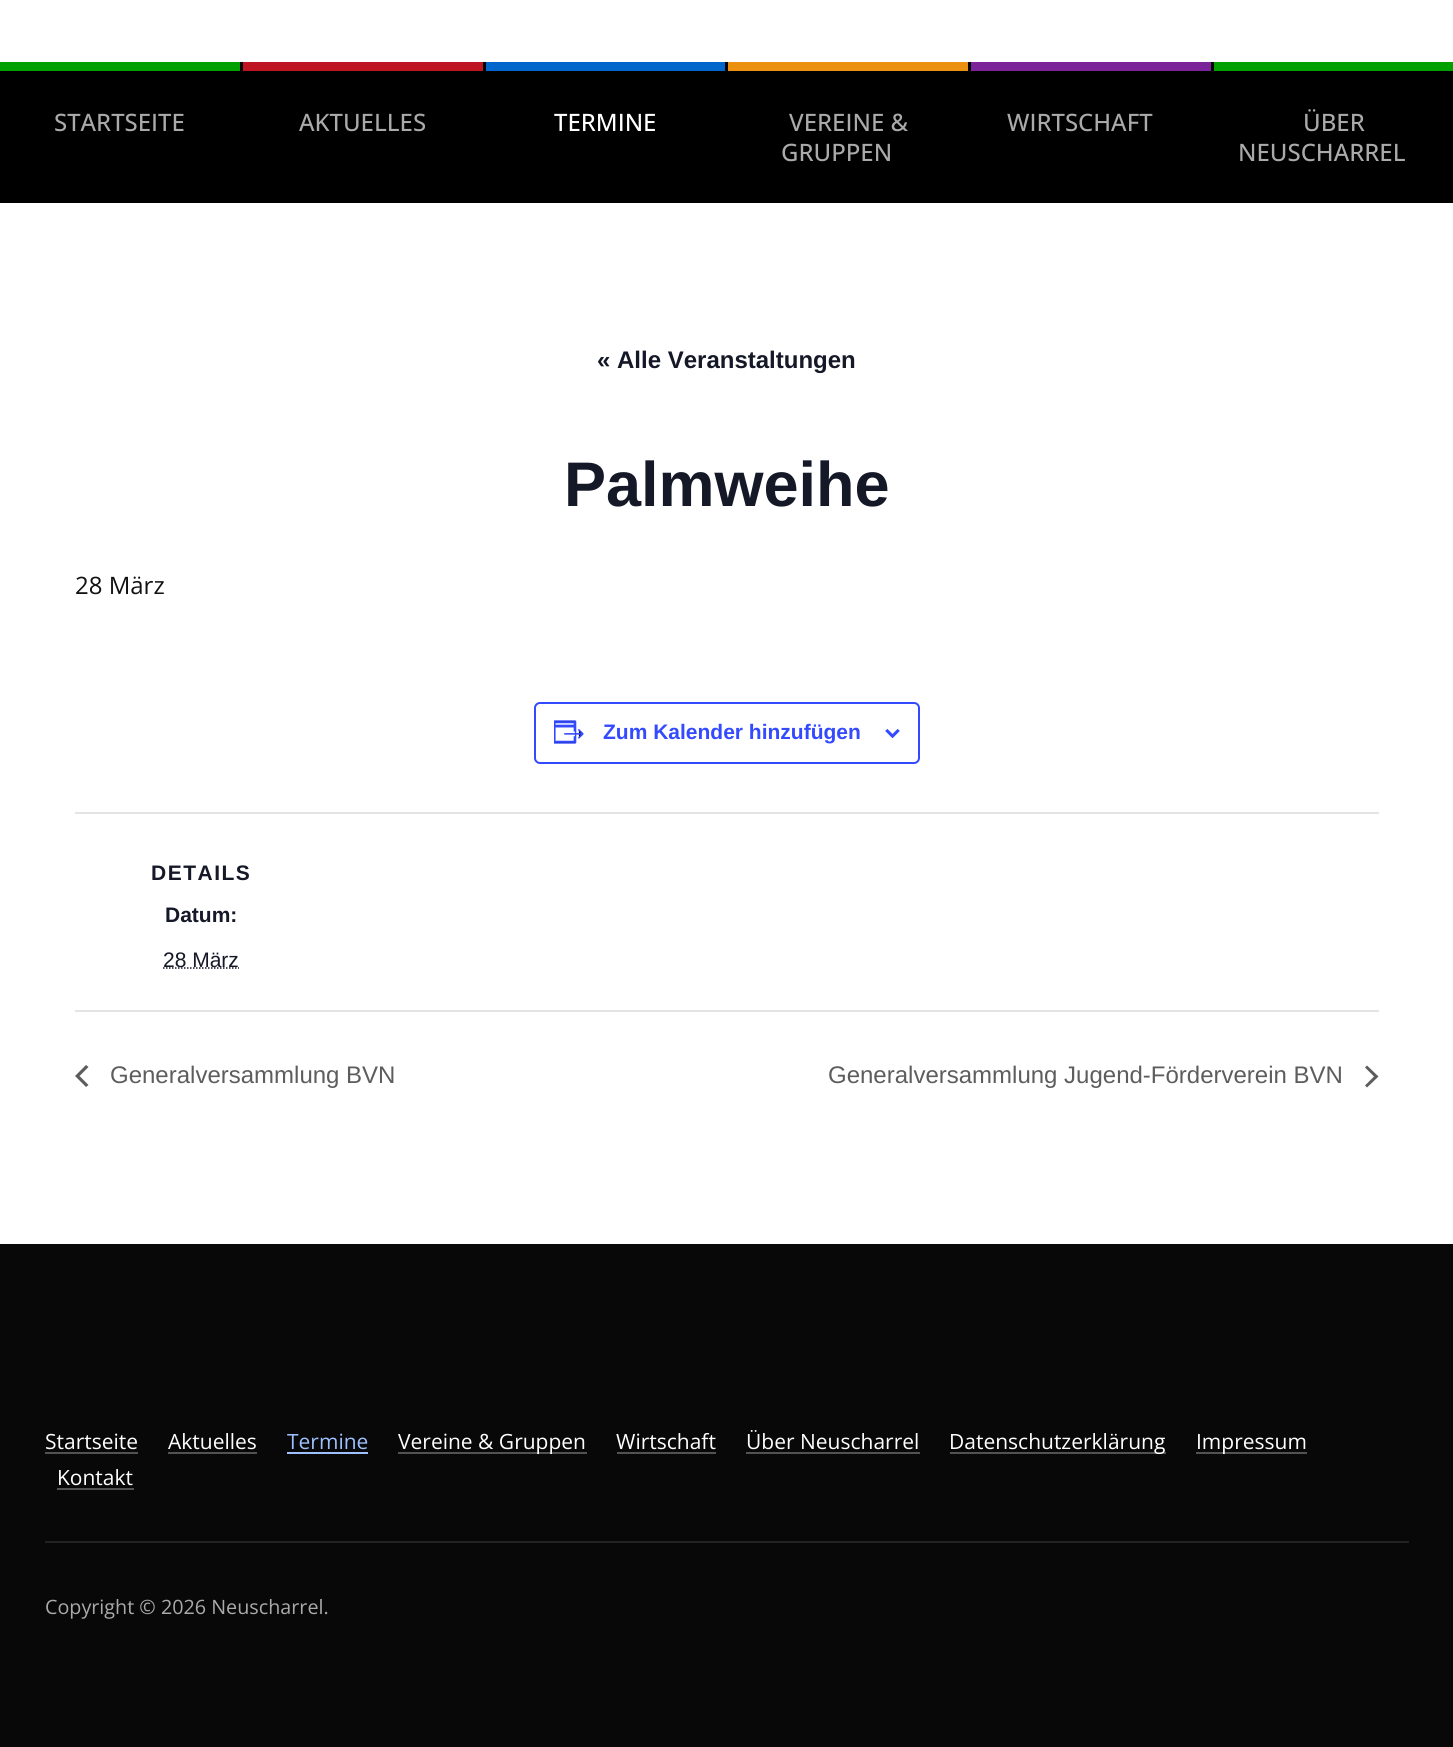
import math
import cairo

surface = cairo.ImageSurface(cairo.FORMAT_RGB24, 1453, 1747)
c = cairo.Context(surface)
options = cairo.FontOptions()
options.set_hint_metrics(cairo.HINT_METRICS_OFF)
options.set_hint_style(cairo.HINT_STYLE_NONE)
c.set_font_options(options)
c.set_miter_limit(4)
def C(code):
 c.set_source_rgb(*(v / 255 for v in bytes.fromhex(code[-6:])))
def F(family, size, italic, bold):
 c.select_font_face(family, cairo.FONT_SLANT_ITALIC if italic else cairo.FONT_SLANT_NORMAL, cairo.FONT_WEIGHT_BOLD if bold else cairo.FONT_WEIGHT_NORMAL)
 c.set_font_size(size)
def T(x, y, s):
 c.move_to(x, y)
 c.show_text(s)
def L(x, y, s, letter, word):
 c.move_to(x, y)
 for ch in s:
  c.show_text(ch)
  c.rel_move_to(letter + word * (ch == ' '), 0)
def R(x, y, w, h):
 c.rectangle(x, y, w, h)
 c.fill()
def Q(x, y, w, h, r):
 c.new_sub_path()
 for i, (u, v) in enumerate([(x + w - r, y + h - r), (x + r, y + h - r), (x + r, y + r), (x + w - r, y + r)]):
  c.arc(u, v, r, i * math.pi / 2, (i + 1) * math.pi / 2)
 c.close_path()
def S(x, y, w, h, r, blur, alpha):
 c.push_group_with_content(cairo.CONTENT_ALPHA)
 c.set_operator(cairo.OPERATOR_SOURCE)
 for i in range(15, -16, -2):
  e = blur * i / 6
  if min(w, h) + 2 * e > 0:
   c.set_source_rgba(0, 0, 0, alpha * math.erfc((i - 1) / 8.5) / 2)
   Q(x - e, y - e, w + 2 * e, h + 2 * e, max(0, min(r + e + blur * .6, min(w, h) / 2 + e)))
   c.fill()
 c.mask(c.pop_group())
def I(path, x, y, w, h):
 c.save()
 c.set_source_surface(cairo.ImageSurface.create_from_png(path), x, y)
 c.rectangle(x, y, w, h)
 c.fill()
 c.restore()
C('ffffff')
c.paint()
c.save()
c.set_fill_rule(cairo.FILL_RULE_EVEN_ODD)
c.new_path()
c.move_to(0,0)
c.line_to(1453,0)
c.line_to(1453,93)
c.line_to(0,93)
c.close_path()
c.move_to(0,-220)
c.line_to(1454,-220)
c.line_to(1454,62)
c.line_to(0,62)
c.close_path()
c.clip()
C('000000')
S(0,-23,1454,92,0,7.5,.1)
c.restore()
C('000000')
R(240,62,3,141)
R(0,71,240,132)
C('00a000')
R(0,62,240,9)
F('Open Sans Medium',24,0,0)
C('aaaaaa')
T(54,131,'STARTSEITE')
C('000000')
R(483,62,3,141)
R(243,71,240,132)
C('bf1522')
R(243,62,240,9)
C('aaaaaa')
T(299,131,'AKTUELLES')
C('000000')
R(725,62,3,141)
R(486,71,239,132)
C('0066cc')
R(486,62,239,9)
C('ffffff')
T(554,131,'TERMINE')
C('000000')
R(968,62,3,141)
R(728,71,240,132)
C('ec900f')
R(728,62,240,9)
C('aaaaaa')
T(789,131,'VEREINE &')
T(781,161,'GRUPPEN')
C('000000')
R(1211,62,3,141)
R(971,71,240,132)
C('7b2398')
R(971,62,240,9)
C('aaaaaa')
T(1007,131,'WIRTSCHAFT')
C('000000')
R(1214,71,239,132)
C('00a000')
R(1214,62,239,9)
C('aaaaaa')
T(1303,131,'ÜBER')
T(1238,161,'NEUSCHARREL')
F('Liberation Sans',24,0,1)
C('141827')
T(597,368,'« Alle Veranstaltungen')
F('Liberation Sans',63,0,1)
T(564,506,'Palmweihe')
F('Open Sans',24,0,0)
C('111111')
T(75,594,'28 März')
Q(535,703,384,60,5)
C('334aff')
c.stroke()
I('1.png',554,720,30,24)
F('Liberation Sans',21,0,1)
T(603,739,'Zum Kalender hinzufügen')
I('2.png',885,729,15,9)
C('e4e4e4')
R(75,812,1304,2)
C('141827')
L(151,880,'DETAILS',1.5,0)
T(165,922,'Datum:')
c.new_path()
c.move_to(163,968)
c.line_to(239,968)
c.set_line_width(1.5)
c.set_dash([1.5,1.5])
c.stroke()
F('Liberation Sans',21,0,0)
T(163,967,'28 März')
C('e4e4e4')
R(75,1010,1304,2)
C('5d5d5d')
c.new_path()
c.move_to(88.5,1085)
c.line_to(86,1087)
c.line_to(75,1076)
c.line_to(86,1065)
c.line_to(88.5,1067)
c.line_to(79.5,1076)
c.close_path()
c.fill()
F('Liberation Sans',24,0,0)
T(110,1083,'Generalversammlung BVN')
T(828,1083,'Generalversammlung Jugend-Förderverein BVN')
c.new_path()
c.move_to(1365,1067.5)
c.line_to(1367,1065.5)
c.line_to(1378.5,1076.5)
c.line_to(1367,1087.5)
c.line_to(1365,1085.5)
c.line_to(1374,1076.5)
c.close_path()
c.fill()
C('080808')
R(0,1244,1453,503)
F('Open Sans',21,0,0)
C('ffffff')
T(45,1449,'Startseite')
C('525252')
R(45,1452,93,2)
C('ffffff')
T(168,1449,'Aktuelles')
C('525252')
R(168,1452,89,2)
C('9ec0ff')
T(287,1449,'Termine')
R(287,1452,81,2)
C('525252')
R(398,1452,189,2)
C('ffffff')
T(398,1449,'Vereine & Gruppen')
T(616,1449,'Wirtschaft')
C('525252')
R(617,1452,99,2)
C('ffffff')
T(746,1449,'Über Neuscharrel')
C('525252')
R(746,1452,174,2)
R(950,1452,216,2)
C('ffffff')
T(949,1449,'Datenschutzerklärung')
C('525252')
R(1196,1452,111,2)
C('ffffff')
T(1196,1449,'Impressum')
T(57,1485,'Kontakt')
C('525252')
R(57,1488,77,2)
C('222222')
R(45,1541,1364,2)
F('Open Sans',19.75,0,0)
C('aaaaaa')
T(45,1614,'Copyright © 2026 Neuscharrel.')
surface.write_to_png('o.png')
